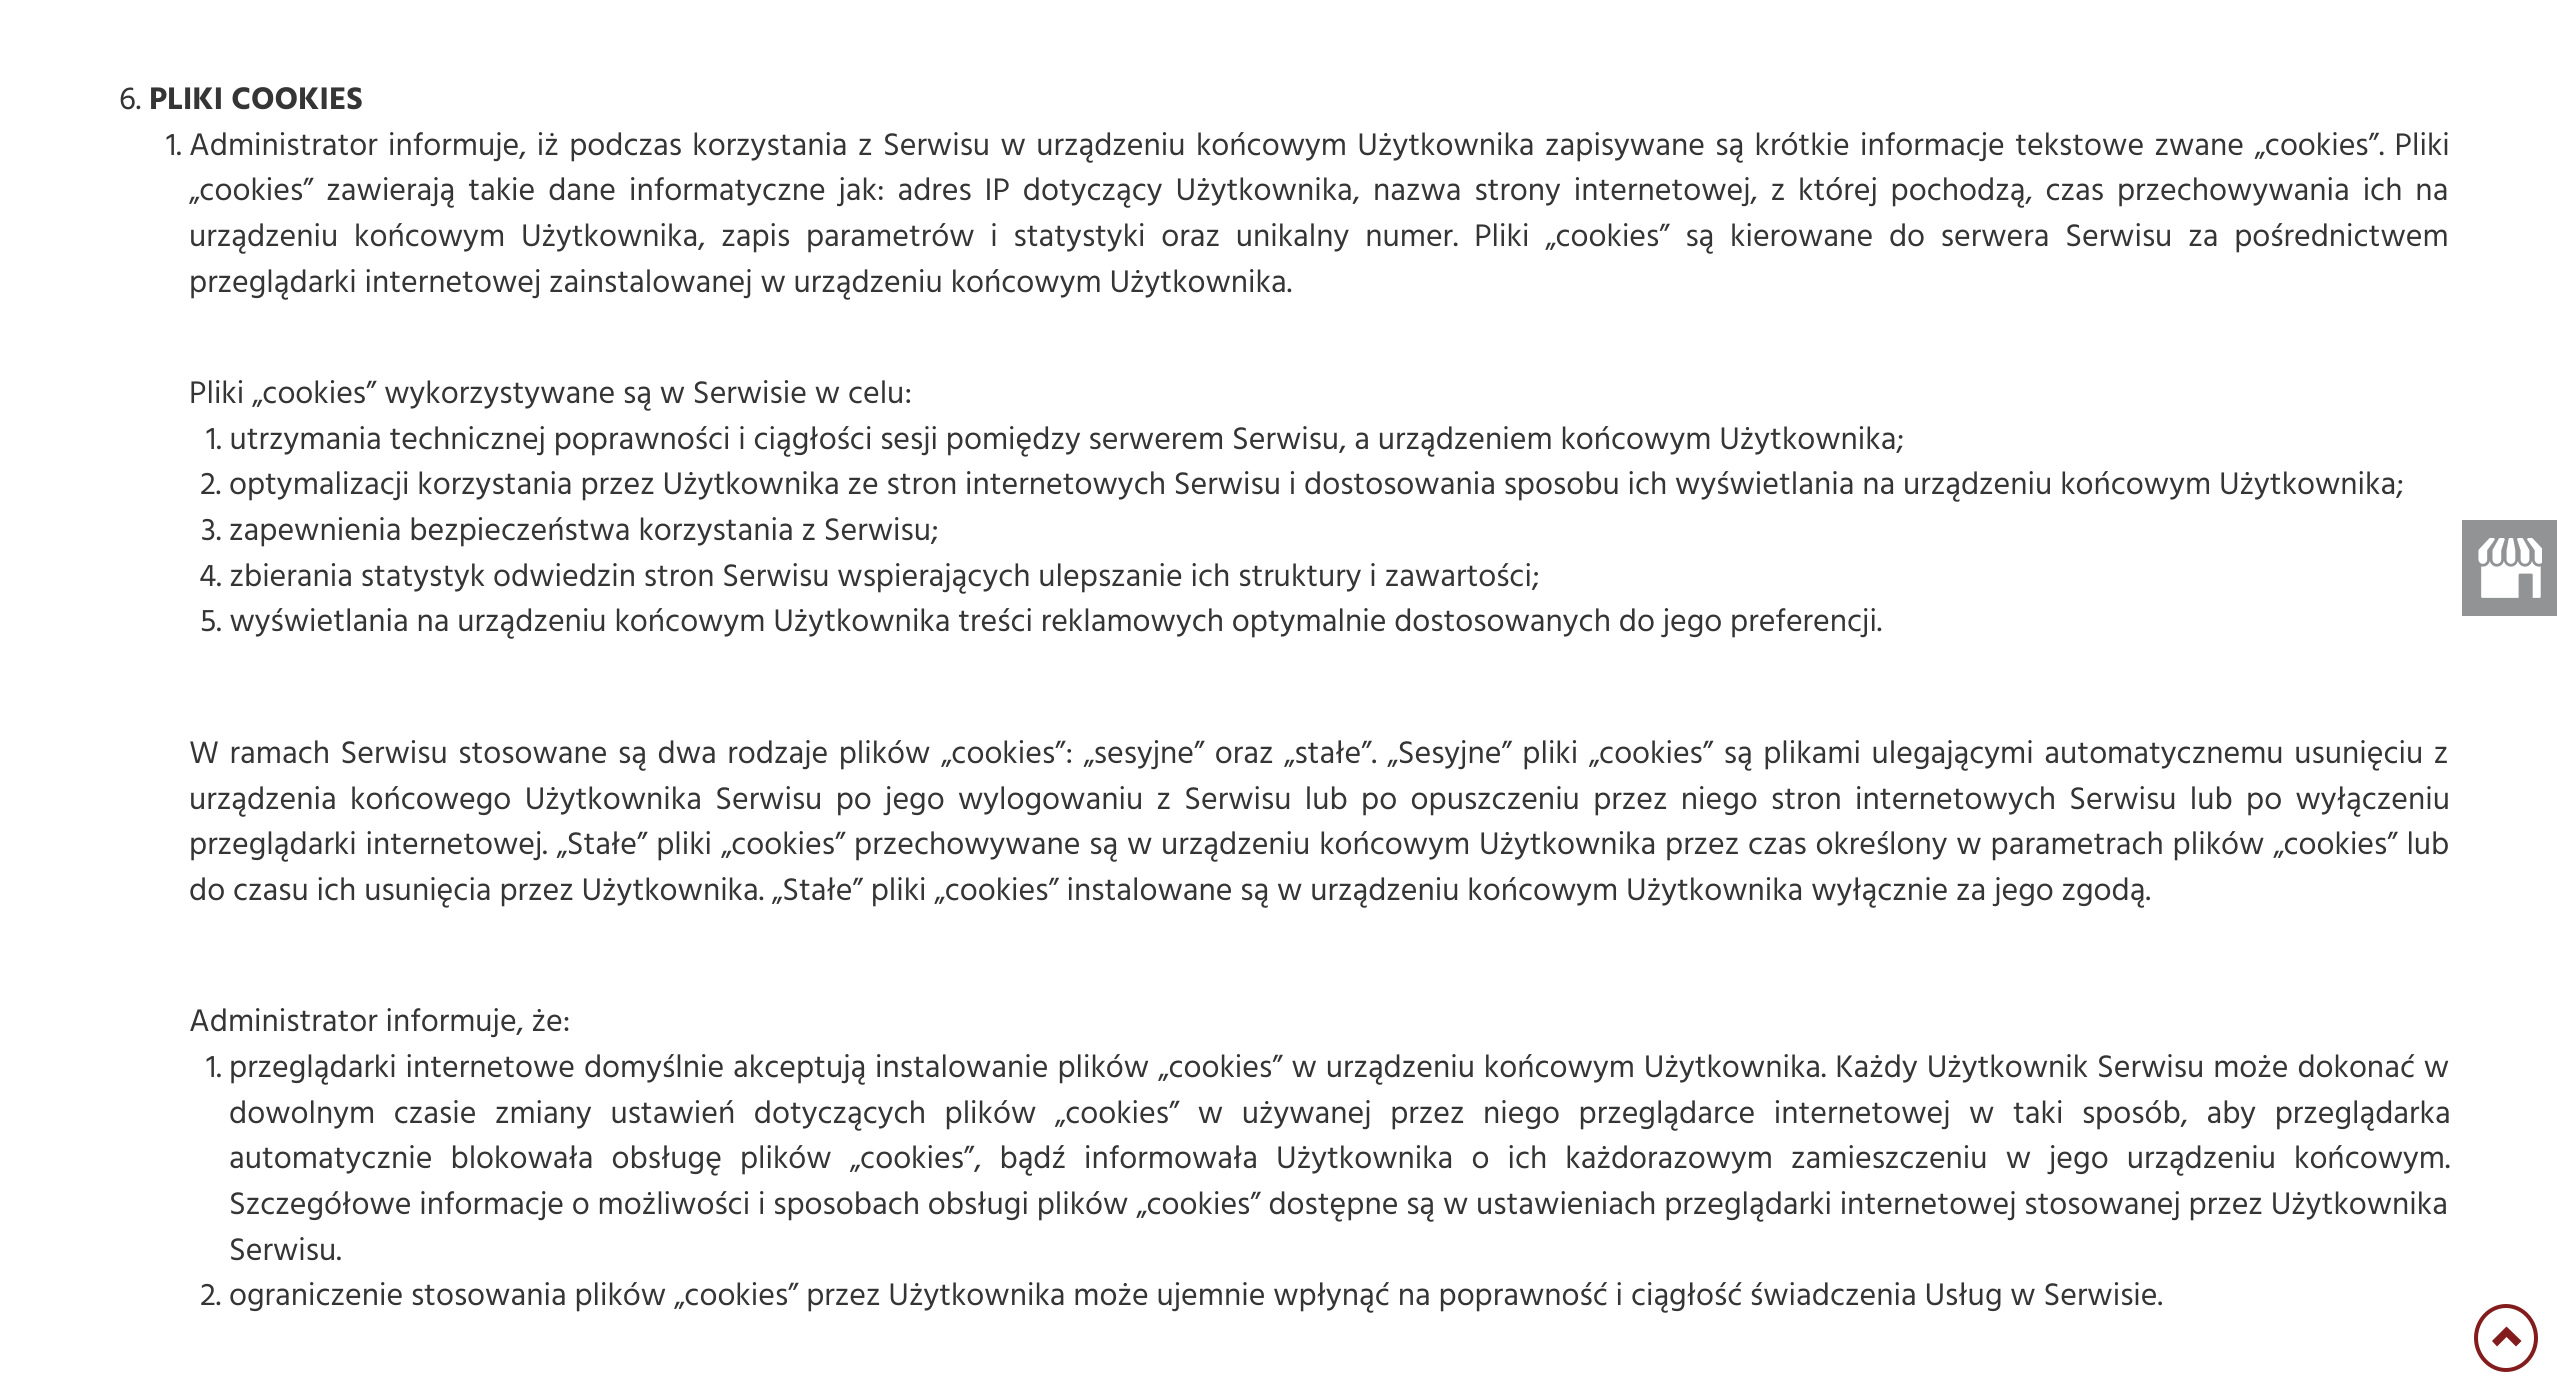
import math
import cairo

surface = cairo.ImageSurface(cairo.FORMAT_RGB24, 2557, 1383)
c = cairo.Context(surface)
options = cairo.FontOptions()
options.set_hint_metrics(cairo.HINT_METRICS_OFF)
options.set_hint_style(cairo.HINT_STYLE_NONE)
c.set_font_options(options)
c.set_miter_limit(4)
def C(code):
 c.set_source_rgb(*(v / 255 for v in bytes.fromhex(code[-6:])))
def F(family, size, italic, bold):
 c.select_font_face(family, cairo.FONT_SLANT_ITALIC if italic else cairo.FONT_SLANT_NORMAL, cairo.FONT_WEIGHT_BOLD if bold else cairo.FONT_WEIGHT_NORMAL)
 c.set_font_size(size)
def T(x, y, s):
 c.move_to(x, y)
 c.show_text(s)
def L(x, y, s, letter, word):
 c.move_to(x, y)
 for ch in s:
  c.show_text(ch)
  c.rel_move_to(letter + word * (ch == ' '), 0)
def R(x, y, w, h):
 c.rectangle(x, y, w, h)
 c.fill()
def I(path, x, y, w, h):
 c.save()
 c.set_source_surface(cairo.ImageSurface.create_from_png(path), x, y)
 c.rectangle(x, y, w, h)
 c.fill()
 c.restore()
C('ffffff')
c.paint()
F('Hind',32,0,0)
C('353535')
T(119,109,'6.')
F('Hind',32,0,1)
T(149,109,'PLIKI COOKIES')
F('Hind',32,0,0)
T(166,155,'1.')
L(189,155,'Administrator informuje, iż podczas korzystania z Serwisu w urządzeniu końcowym Użytkownika zapisywane są krótkie informacje tekstowe zwane „cookies”. Pliki',0,2.6)
L(189,200,'„cookies” zawierają takie dane informatyczne jak: adres IP dotyczący Użytkownika, nazwa strony internetowej, z której pochodzą, czas przechowywania ich na',0,5.1)
L(189,246,'urządzeniu końcowym Użytkownika, zapis parametrów i statystyki oraz unikalny numer. Pliki „cookies” są kierowane do serwera Serwisu za pośrednictwem',0,8)
T(189,292,'przeglądarki internetowej zainstalowanej w urządzeniu końcowym Użytkownika.')
T(189,403,'Pliki „cookies” wykorzystywane są w Serwisie w celu:')
T(206,449,'1. utrzymania technicznej poprawności i ciągłości sesji pomiędzy serwerem Serwisu, a urządzeniem końcowym Użytkownika;')
T(200,494,'2. optymalizacji korzystania przez Użytkownika ze stron internetowych Serwisu i dostosowania sposobu ich wyświetlania na urządzeniu końcowym Użytkownika;')
T(201,540,'3. zapewnienia bezpieczeństwa korzystania z Serwisu;')
T(199,586,'4. zbierania statystyk odwiedzin stron Serwisu wspierających ulepszanie ich struktury i zawartości;')
T(200,631,'5. wyświetlania na urządzeniu końcowym Użytkownika treści reklamowych optymalnie dostosowanych do jego preferencji.')
L(189,763,'W ramach Serwisu stosowane są dwa rodzaje plików „cookies”: „sesyjne” oraz „stałe”. „Sesyjne” pliki „cookies” są plikami ulegającymi automatycznemu usunięciu z',0,2.75)
L(189,809,'urządzenia końcowego Użytkownika Serwisu po jego wylogowaniu z Serwisu lub po opuszczeniu przez niego stron internetowych Serwisu lub po wyłączeniu',0,5.5)
L(189,854,'przeglądarki internetowej. „Stałe” pliki „cookies” przechowywane są w urządzeniu końcowym Użytkownika przez czas określony w parametrach plików „cookies” lub',0,1)
T(189,900,'do czasu ich usunięcia przez Użytkownika. „Stałe” pliki „cookies” instalowane są w urządzeniu końcowym Użytkownika wyłącznie za jego zgodą.')
T(189,1031,'Administrator informuje, że:')
T(206,1077,'1.')
L(229,1077,'przeglądarki internetowe domyślnie akceptują instalowanie plików „cookies” w urządzeniu końcowym Użytkownika. Każdy Użytkownik Serwisu może dokonać w',0,1.1)
L(229,1123,'dowolnym czasie zmiany ustawień dotyczących plików „cookies” w używanej przez niego przeglądarce internetowej w taki sposób, aby przeglądarka',0,10.75)
L(229,1168,'automatycznie blokowała obsługę plików „cookies”, bądź informowała Użytkownika o ich każdorazowym zamieszczeniu w jego urządzeniu końcowym.',0,10.25)
T(229,1214,'Szczegółowe informacje o możliwości i sposobach obsługi plików „cookies” dostępne są w ustawieniach przeglądarki internetowej stosowanej przez Użytkownika')
T(229,1260,'Serwisu.')
T(200,1305,'2. ograniczenie stosowania plików „cookies” przez Użytkownika może ujemnie wpłynąć na poprawność i ciągłość świadczenia Usług w Serwisie.')
C('919394')
R(2462,520,95,96)
I('1.png',2478,538,64,60)
c.new_path()
c.move_to(2506,1306)
c.curve_to(2522.5,1306,2536,1320.5,2536,1338)
c.curve_to(2536,1355.5,2522.5,1370,2506,1370)
c.curve_to(2489.5,1370,2476,1355.5,2476,1338)
c.curve_to(2476,1320.5,2489.5,1306,2506,1306)
c.close_path()
C('831c1c')
c.set_line_width(4)
c.stroke()
c.new_path()
c.move_to(2521.5,1341)
c.line_to(2516,1346.5)
c.line_to(2506.5,1337)
c.line_to(2497,1346.5)
c.line_to(2492,1341)
c.line_to(2506.5,1326.5)
c.close_path()
c.fill()
surface.write_to_png('o.png')
